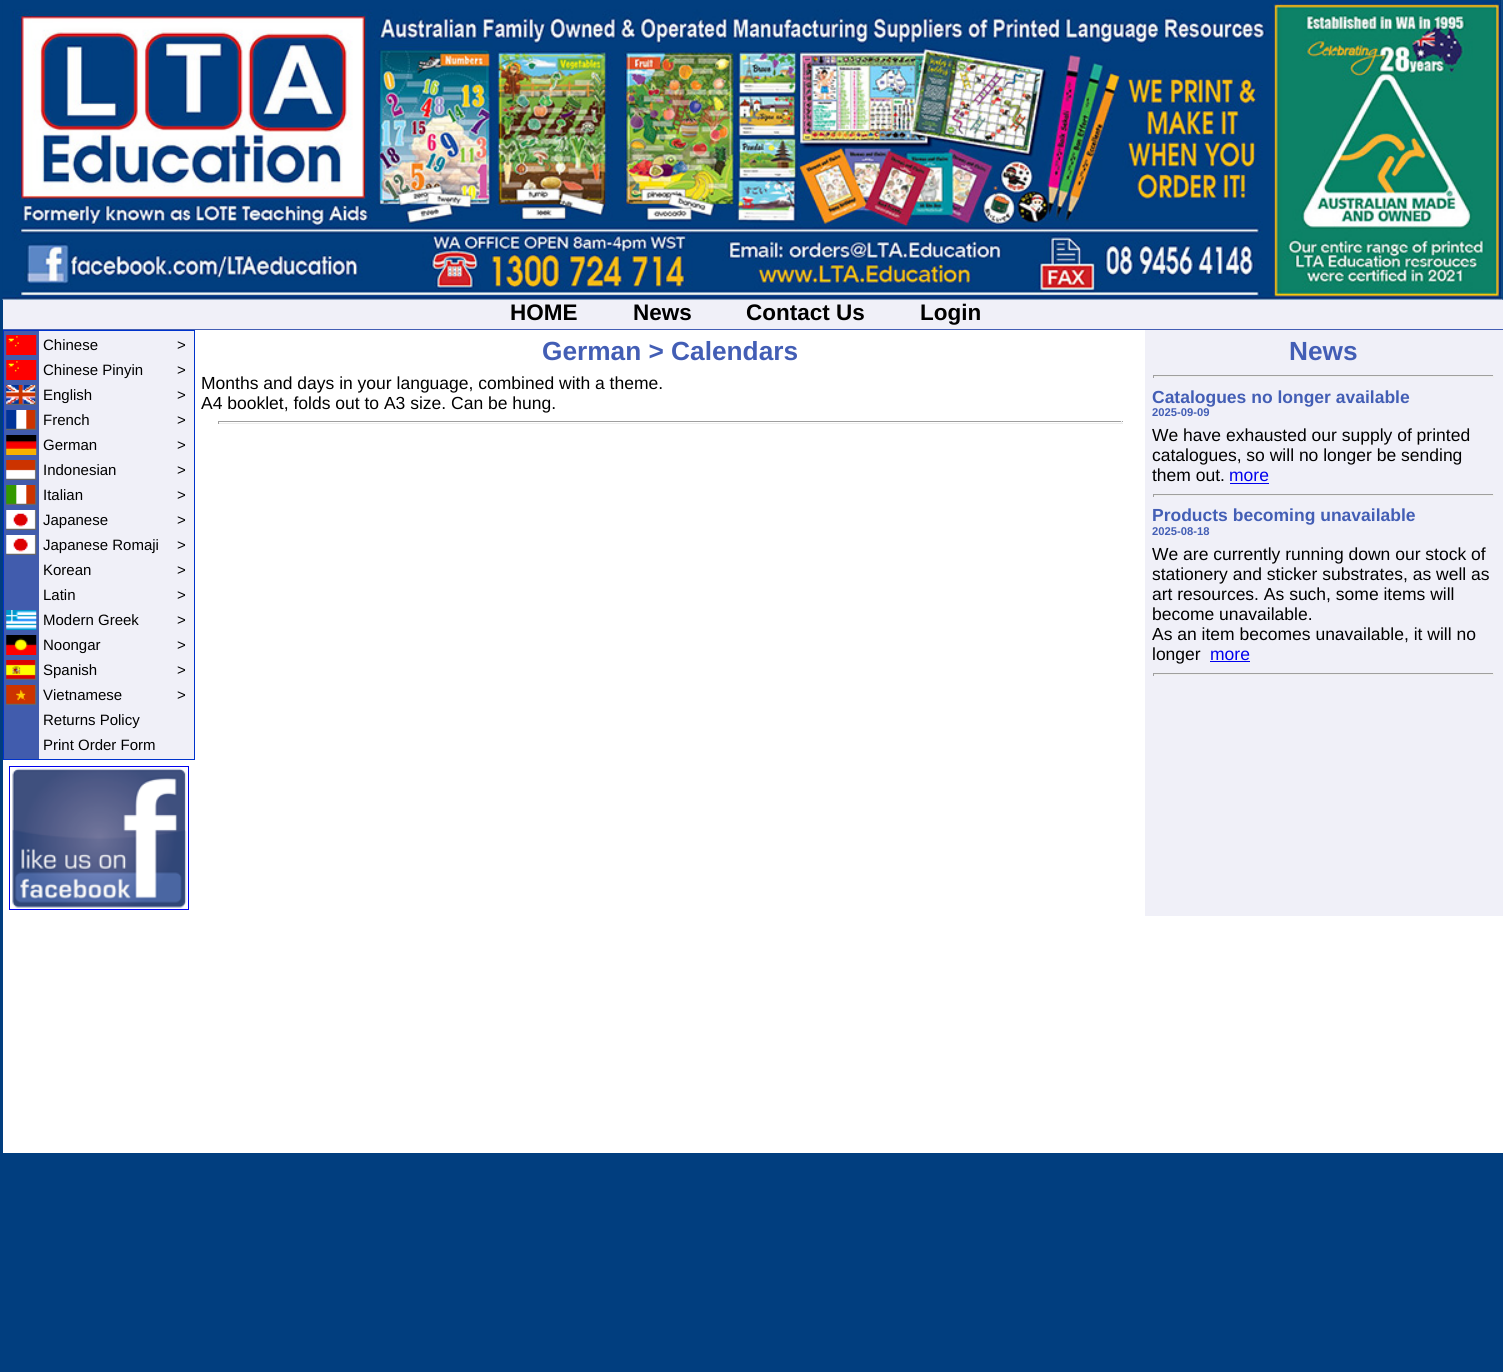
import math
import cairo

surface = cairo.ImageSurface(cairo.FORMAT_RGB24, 1503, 1372)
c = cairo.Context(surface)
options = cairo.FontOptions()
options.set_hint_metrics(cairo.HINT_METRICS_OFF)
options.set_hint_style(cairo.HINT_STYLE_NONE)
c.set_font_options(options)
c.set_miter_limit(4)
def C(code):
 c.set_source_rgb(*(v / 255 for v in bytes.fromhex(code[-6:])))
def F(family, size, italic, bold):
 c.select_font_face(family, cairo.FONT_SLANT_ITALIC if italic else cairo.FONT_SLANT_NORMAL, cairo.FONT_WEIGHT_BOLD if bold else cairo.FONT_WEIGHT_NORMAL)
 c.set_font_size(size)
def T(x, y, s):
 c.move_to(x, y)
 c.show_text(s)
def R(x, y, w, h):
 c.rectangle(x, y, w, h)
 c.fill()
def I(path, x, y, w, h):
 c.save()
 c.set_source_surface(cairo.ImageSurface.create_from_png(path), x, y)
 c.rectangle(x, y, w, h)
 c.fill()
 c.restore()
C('013e7f')
c.paint()
I('1.png',2,0,1501,300)
C('ffffff')
R(3,330,1500,823)
C('f0f0f8')
R(3,300,1500,29)
C('435eb5')
R(3,329,1500,1)
F('Liberation Sans',22.5,0,1)
C('000000')
T(510,320,'HOME')
T(633,320,'News')
T(746,320,'Contact Us')
T(920,320,'Login')
C('f0f0f8')
R(39,331,155,428)
C('415cad')
R(4,331,35,428)
c.rectangle(3.5,330.5,191,429)
C('0033cc')
c.set_line_width(1)
c.stroke()
I('2.png',6,335,31,20)
F('Liberation Sans',15,0,0)
C('000000')
T(43,350,'Chinese')
T(177,350,'>')
I('2.png',6,360,31,20)
T(43,375,'Chinese Pinyin')
T(177,375,'>')
I('3.png',6,385,31,20)
T(43,400,'English')
T(177,400,'>')
I('4.png',6,410,31,20)
T(43,425,'French')
T(177,425,'>')
I('5.png',6,435,31,20)
T(43,450,'German')
T(177,450,'>')
I('6.png',6,460,31,20)
T(43,475,'Indonesian')
T(177,475,'>')
I('7.png',6,485,31,20)
T(43,500,'Italian')
T(177,500,'>')
I('8.png',6,510,31,20)
T(43,525,'Japanese')
T(177,525,'>')
I('8.png',6,535,31,20)
T(43,550,'Japanese Romaji')
T(177,550,'>')
T(43,575,'Korean')
T(177,575,'>')
T(43,600,'Latin')
T(177,600,'>')
I('9.png',6,610,31,20)
T(43,625,'Modern Greek')
T(177,625,'>')
I('10.png',6,635,31,20)
T(43,650,'Noongar')
T(177,650,'>')
I('11.png',6,660,31,20)
T(43,675,'Spanish')
T(177,675,'>')
I('12.png',6,685,31,20)
T(43,700,'Vietnamese')
T(177,700,'>')
T(43,725,'Returns Policy')
T(43,750,'Print Order Form')
c.rectangle(9.5,766.5,179,143)
C('0000ee')
c.stroke()
I('13.png',12,768,175,140)
F('Liberation Sans',26.25,0,1)
C('435eb5')
T(542,360,'German > Calendars')
F('Liberation Sans',17.5,0,0)
C('000000')
T(201,389,'Months and days in your language, combined with a theme.')
T(201,409,'A4 booklet, folds out to A3 size. Can be hung.')
C('9f9f9f')
R(218,421,905,1)
C('eeeeee')
R(1121,421,1,3)
R(218,423,905,1)
C('9f9f9f')
R(218,421,1,3)
C('f0f0f8')
R(1145,330,358,586)
F('Liberation Sans',26.25,0,1)
C('435eb5')
T(1289,360,'News')
C('9f9f9f')
R(1153,375,341,1)
C('eeeeee')
R(1493,375,1,3)
R(1153,376,341,1)
C('9f9f9f')
R(1153,375,1,3)
F('Liberation Sans',17.5,0,1)
C('435eb5')
T(1152,403,'Catalogues no longer available')
F('Liberation Sans',11.25,0,1)
T(1152,416,'2025-09-09')
F('Liberation Sans',17.5,0,0)
C('000000')
T(1152,441,'We have exhausted our supply of printed')
T(1152,461,'catalogues, so will no longer be sending')
T(1152,481,'them out.')
C('0000ee')
T(1229,481,'more')
R(1230,483,39,1)
C('9f9f9f')
R(1153,494,341,1)
C('eeeeee')
R(1493,494,1,3)
R(1153,495,341,1)
C('9f9f9f')
R(1153,494,1,3)
F('Liberation Sans',17.5,0,1)
C('435eb5')
T(1152,521,'Products becoming unavailable')
F('Liberation Sans',11.25,0,1)
T(1152,535,'2025-08-18')
F('Liberation Sans',17.5,0,0)
C('000000')
T(1152,560,'We are currently running down our stock of')
T(1152,580,'stationery and sticker substrates, as well as')
T(1152,600,'art resources. As such, some items will')
T(1152,620,'become unavailable.')
T(1152,640,'As an item becomes unavailable, it will no')
T(1152,660,'longer')
C('0000ee')
T(1210,660,'more')
R(1210,661,40,1)
C('9f9f9f')
R(1153,673,341,1)
C('eeeeee')
R(1493,673,1,3)
R(1153,674,341,1)
C('9f9f9f')
R(1153,673,1,3)
surface.write_to_png('o.png')
